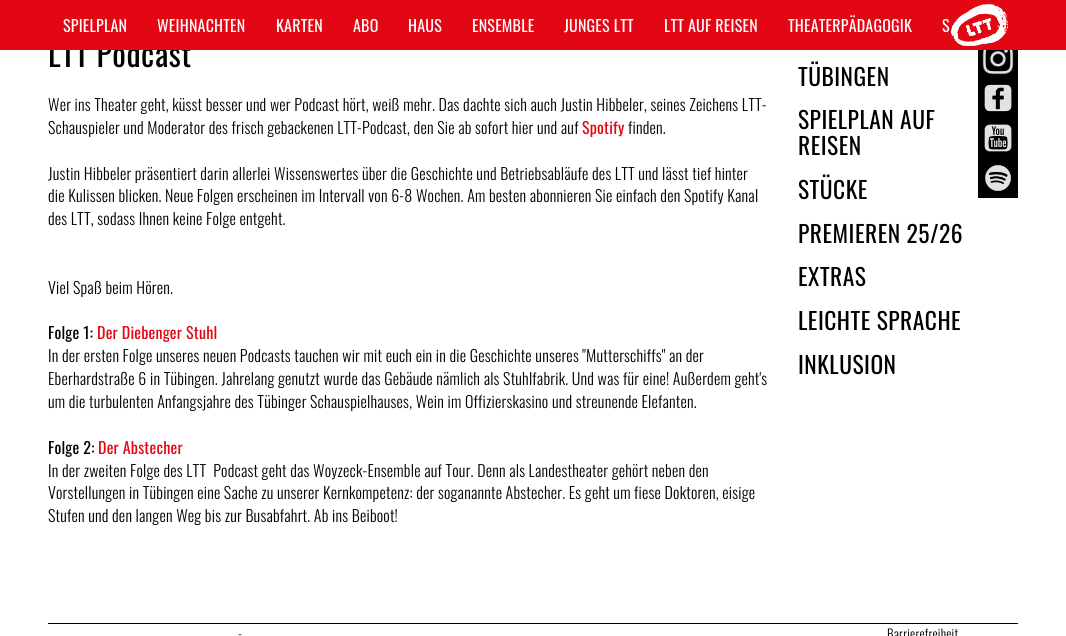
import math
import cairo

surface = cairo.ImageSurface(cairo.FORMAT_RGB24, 1066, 636)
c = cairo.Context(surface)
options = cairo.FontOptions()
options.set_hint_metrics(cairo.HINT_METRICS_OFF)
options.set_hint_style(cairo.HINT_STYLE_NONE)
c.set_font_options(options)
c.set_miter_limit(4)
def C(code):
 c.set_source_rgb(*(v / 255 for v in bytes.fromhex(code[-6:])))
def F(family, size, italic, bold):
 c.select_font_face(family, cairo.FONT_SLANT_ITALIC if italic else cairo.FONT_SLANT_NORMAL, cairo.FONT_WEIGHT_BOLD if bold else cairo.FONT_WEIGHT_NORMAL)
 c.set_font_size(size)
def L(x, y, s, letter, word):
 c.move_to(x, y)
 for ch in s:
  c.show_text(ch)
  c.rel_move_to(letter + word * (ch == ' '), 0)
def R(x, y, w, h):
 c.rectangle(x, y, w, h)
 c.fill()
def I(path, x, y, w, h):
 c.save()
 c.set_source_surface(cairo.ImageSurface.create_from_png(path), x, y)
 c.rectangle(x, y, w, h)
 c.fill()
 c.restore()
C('ffffff')
c.paint()
F('Oswald',32,0,0)
C('000000')
L(48,67,'LTT Podcast',.5,0)
C('e30613')
R(0,0,1066,50)
F('Oswald',16,0,0)
C('ffffff')
L(63,32,'SPIELPLAN',.2,0)
L(157,32,'WEIHNACHTEN',.2,0)
L(276,32,'KARTEN',.2,0)
L(353,32,'ABO',.2,0)
L(408,32,'HAUS',.2,0)
L(472,32,'ENSEMBLE',.2,0)
L(564,32,'JUNGES LTT',.2,0)
L(664,32,'LTT AUF REISEN',.2,0)
L(788,32,'THEATERPÄDAGOGIK',.2,0)
L(942,32,'S',.2,0)
I('1.png',951,4,57,42)
F('Oswald Light',16,0,0)
C('000000')
L(48,111,'Wer ins Theater geht, küsst besser und wer Podcast hört, weiß mehr. Das dachte sich auch Justin Hibbeler, seines Zeichens LTT-',.2,0)
L(48,134,'Schauspieler und Moderator des frisch gebackenen LTT-Podcast, den Sie ab sofort hier und auf',.2,0)
F('Oswald',16,0,0)
C('e30613')
L(582,134,'Spotify',.2,0)
F('Oswald Light',16,0,0)
C('000000')
L(628,134,'finden.',.2,0)
L(48,180,'Justin Hibbeler präsentiert darin allerlei Wissenswertes über die Geschichte und Betriebsabläufe des LTT und lässt tief hinter',.2,0)
L(48,202,'die Kulissen blicken. Neue Folgen erscheinen im Intervall von 6-8 Wochen. Am besten abonnieren Sie einfach den Spotify Kanal',.2,0)
L(48,225,'des LTT, sodass Ihnen keine Folge entgeht.',.2,0)
L(48,294,'Viel Spaß beim Hören.',.2,0)
F('Oswald',16,0,0)
L(48,339,'Folge 1:',.2,0)
C('e30613')
L(97,339,'Der Diebenger Stuhl',.2,0)
F('Oswald Light',16,0,0)
C('000000')
L(48,362,'In der ersten Folge unseres neuen Podcasts tauchen wir mit euch ein in die Geschichte unseres "Mutterschiffs" an der',.2,0)
L(48,385,'Eberhardstraße 6 in Tübingen. Jahrelang genutzt wurde das Gebäude nämlich als Stuhlfabrik. Und was für eine! Außerdem geht\'s',.2,0)
L(48,408,'um die turbulenten Anfangsjahre des Tübinger Schauspielhauses, Wein im Offizierskasino und streunende Elefanten.',.2,0)
F('Oswald',16,0,0)
L(48,454,'Folge 2:',.2,0)
C('e30613')
L(98,454,'Der Abstecher',.2,0)
F('Oswald Light',16,0,0)
C('000000')
L(48,477,'In der zweiten Folge des LTT  Podcast geht das Woyzeck-Ensemble auf Tour. Denn als Landestheater gehört neben den',.2,0)
L(48,499,'Vorstellungen in Tübingen eine Sache zu unserer Kernkompetenz: der soganannte Abstecher. Es geht um fiese Doktoren, eisige',.2,0)
L(48,522,'Stufen und den langen Weg bis zur Busabfahrt. Ab ins Beiboot!',.2,0)
F('Oswald',23.5,0,0)
L(798,86,'TÜBINGEN',.5,0)
L(798,129,'SPIELPLAN AUF',.5,0)
L(798,155,'REISEN',.5,0)
L(798,199,'STÜCKE',.5,0)
L(798,243,'PREMIEREN 25/26',.5,0)
L(798,286,'EXTRAS',.5,0)
L(798,330,'LEICHTE SPRACHE',.5,0)
L(798,374,'INKLUSION',.5,0)
R(978,50,40,148)
I('2.png',982,50,32,25)
I('3.png',984,84,28,28)
I('4.png',984,124,28,28)
I('5.png',985,165,26,26)
R(48,623,970,1)
F('Oswald Light',13,0,0)
L(238,639,'-',.2,0)
L(887,639,'Barrierefreiheit',.2,0)
surface.write_to_png('o.png')
